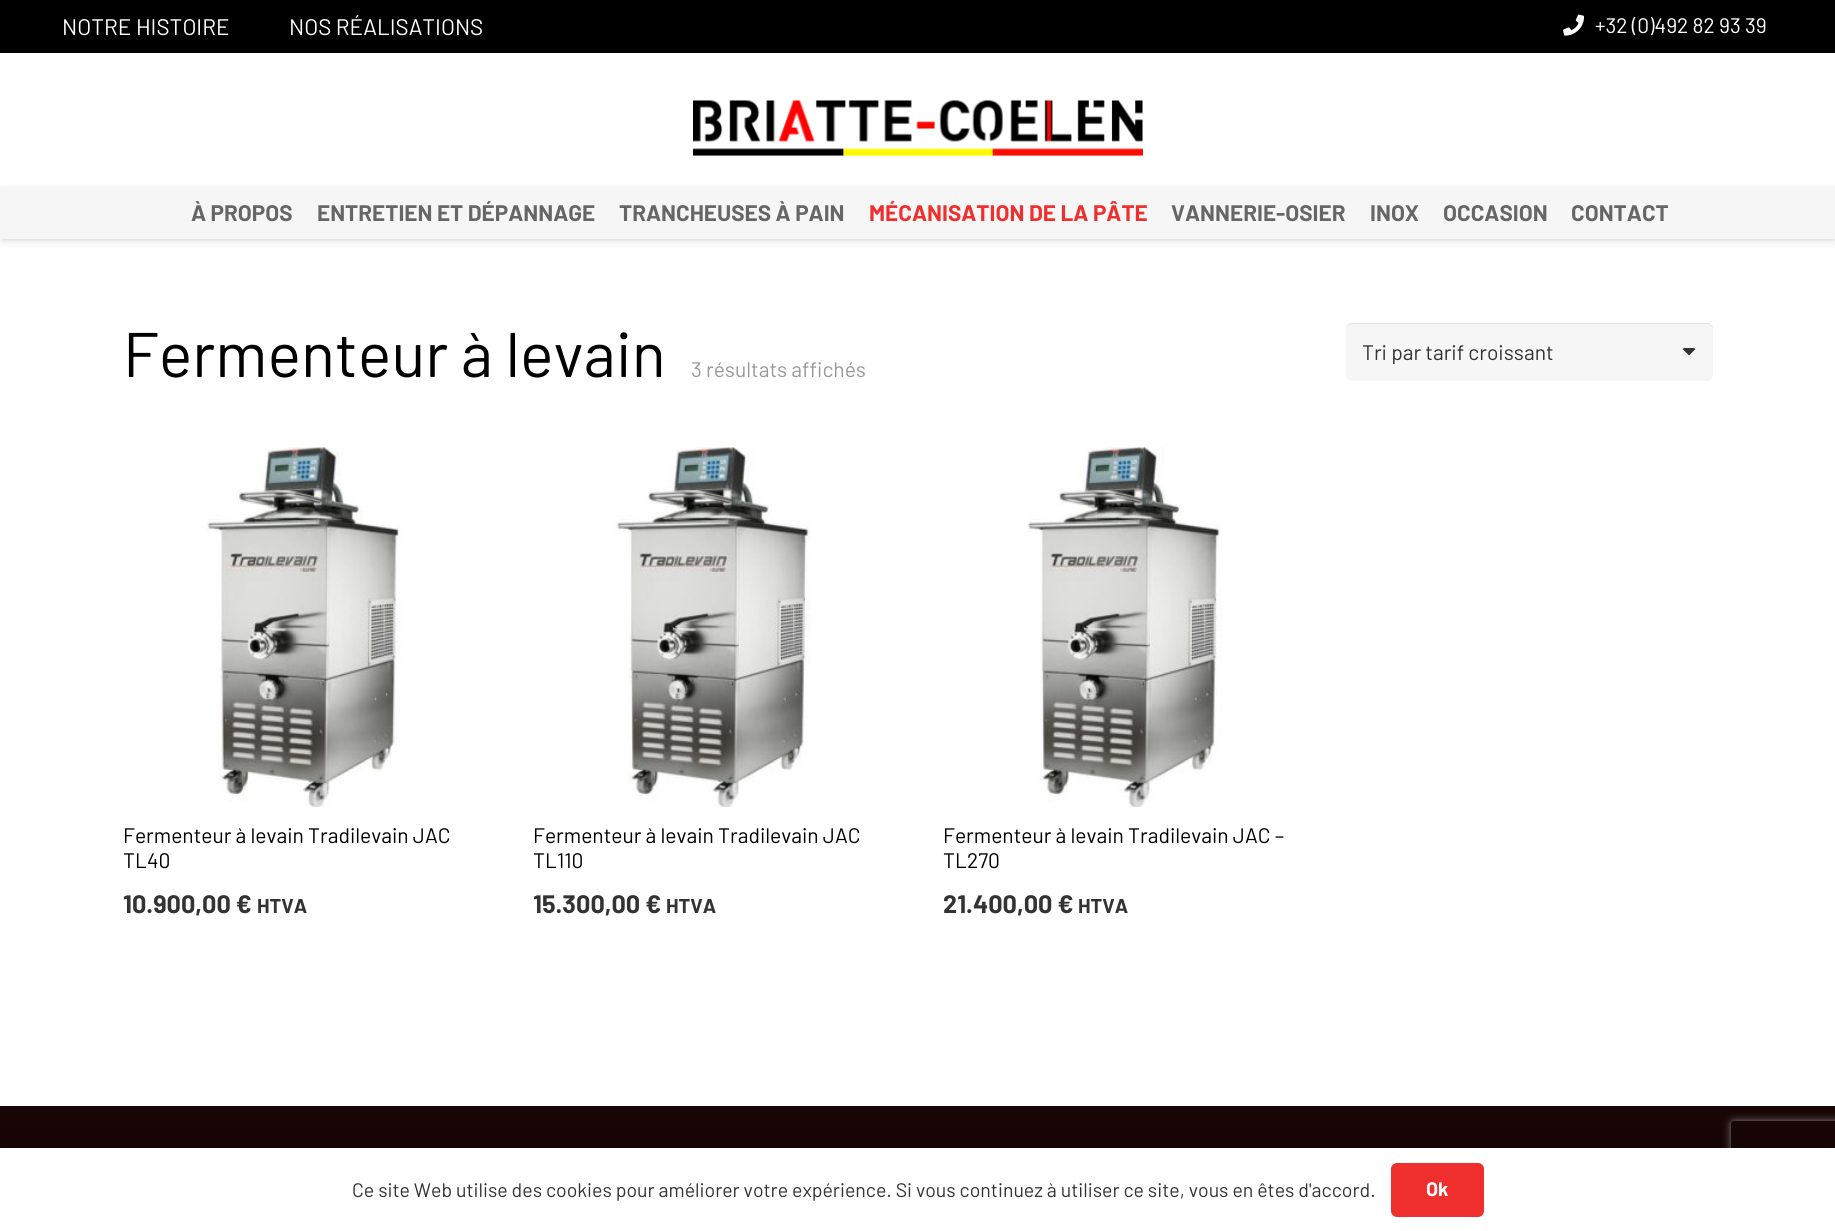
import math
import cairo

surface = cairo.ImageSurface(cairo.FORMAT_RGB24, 1835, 1231)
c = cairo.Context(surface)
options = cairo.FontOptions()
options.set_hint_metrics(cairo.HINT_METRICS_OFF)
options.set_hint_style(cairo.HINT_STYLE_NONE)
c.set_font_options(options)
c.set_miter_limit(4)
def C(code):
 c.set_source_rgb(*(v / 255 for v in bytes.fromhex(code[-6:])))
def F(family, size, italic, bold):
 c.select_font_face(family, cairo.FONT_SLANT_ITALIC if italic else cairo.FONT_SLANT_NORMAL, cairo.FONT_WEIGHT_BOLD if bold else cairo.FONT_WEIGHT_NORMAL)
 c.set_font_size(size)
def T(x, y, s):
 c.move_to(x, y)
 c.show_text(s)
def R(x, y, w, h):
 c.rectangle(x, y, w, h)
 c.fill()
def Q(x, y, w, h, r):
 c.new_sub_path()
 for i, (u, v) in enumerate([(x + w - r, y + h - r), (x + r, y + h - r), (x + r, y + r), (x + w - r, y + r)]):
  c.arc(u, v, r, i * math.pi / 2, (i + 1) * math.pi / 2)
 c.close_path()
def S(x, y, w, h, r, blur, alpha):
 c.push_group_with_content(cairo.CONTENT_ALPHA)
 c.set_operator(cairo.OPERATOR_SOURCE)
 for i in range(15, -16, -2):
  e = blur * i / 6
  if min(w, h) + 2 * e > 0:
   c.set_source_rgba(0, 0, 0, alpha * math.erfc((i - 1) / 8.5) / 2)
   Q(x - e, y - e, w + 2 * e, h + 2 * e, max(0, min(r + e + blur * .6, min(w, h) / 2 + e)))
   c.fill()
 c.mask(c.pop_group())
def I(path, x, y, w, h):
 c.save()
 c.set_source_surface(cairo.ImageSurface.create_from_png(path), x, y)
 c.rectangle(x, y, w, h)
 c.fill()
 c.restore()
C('ffffff')
c.paint()
C('000000')
R(0,0,1835,53)
F('Barlow',22.5,0,0)
C('ffffff')
T(62,35,'NOTRE HISTOIRE')
T(289,35,'NOS RÉALISATIONS')
I('1.png',1563,14,21,22)
F('Barlow',21,0,0)
T(1595,33,'+32 (0)492 82 93 39')
I('2.png',693,99,450,57)
C('000000')
S(2,191,1833,49,0,1,.05)
S(2,192,1833,50,0,4,.1)
C('f6f6f6')
R(0,186,1835,53)
F('Barlow',22.5,0,1)
C('666666')
T(191,221,'À PROPOS')
T(317,221,'ENTRETIEN ET DÉPANNAGE')
T(619,221,'TRANCHEUSES À PAIN')
C('ee2f2d')
T(869,221,'MÉCANISATION DE LA PÂTE')
C('666666')
T(1171,221,'VANNERIE-OSIER')
T(1370,221,'INOX')
T(1443,221,'OCCASION')
T(1571,221,'CONTACT')
F('Barlow',63,0,0)
C('000000')
T(123,377,'Fermenteur à levain')
C('f6f6f6')
Q(1346,323,367,58,6)
c.fill()
C('e2e2e2')
c.new_path()
c.move_to(1352,324)
c.line_to(1707,324)
c.curve_to(1710,324,1713,327,1713,330)
c.curve_to(1713,326,1711,323,1707,323)
c.line_to(1352,323)
c.curve_to(1348,323,1346,326,1346,330)
c.curve_to(1346,327,1348,324,1352,324)
c.close_path()
c.fill()
F('Barlow',21,0,0)
C('333333')
T(1362,360,'Tri par tarif croissant')
c.new_path()
c.move_to(1684.5,348)
c.curve_to(1684,348,1683,348.5,1682.5,349)
c.line_to(1689,355.5)
c.line_to(1695.5,349)
c.curve_to(1695,348.5,1694,348,1693.5,348)
c.close_path()
c.fill()
C('999999')
T(691,377,'3 résultats affichés')
I('3.png',205,447,196,360)
C('000000')
T(123,843,'Fermenteur à levain Tradilevain JAC')
T(123,868,'TL40')
F('Barlow',25.25,0,1)
C('333333')
T(123,913,'10.900,00 €')
F('Barlow',20,0,1)
T(257,913,'HTVA')
I('4.png',615,447,196,360)
F('Barlow',21,0,0)
C('000000')
T(533,843,'Fermenteur à levain Tradilevain JAC')
T(533,868,'TL110')
F('Barlow',25.25,0,1)
C('333333')
T(533,913,'15.300,00 €')
F('Barlow',20,0,1)
T(666,913,'HTVA')
I('5.png',1026,447,196,360)
F('Barlow',21,0,0)
C('000000')
T(943,843,'Fermenteur à levain Tradilevain JAC –')
T(943,868,'TL270')
F('Barlow',25.25,0,1)
C('333333')
T(943,913,'21.400,00 €')
F('Barlow',20,0,1)
T(1078,913,'HTVA')
C('180505')
R(0,1106,1835,42)
C('000000')
S(0,1140,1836,84,0,11,.15)
c.save()
c.set_fill_rule(cairo.FILL_RULE_EVEN_ODD)
c.new_path()
c.move_to(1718,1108)
c.line_to(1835,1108)
c.line_to(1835,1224)
c.line_to(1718,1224)
c.close_path()
c.move_to(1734,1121)
c.line_to(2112,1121)
c.curve_to(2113.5,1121,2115,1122.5,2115,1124)
c.line_to(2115,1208)
c.curve_to(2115,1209.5,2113.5,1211,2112,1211)
c.line_to(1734,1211)
c.curve_to(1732.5,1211,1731,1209.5,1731,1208)
c.line_to(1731,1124)
c.curve_to(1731,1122.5,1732.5,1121,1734,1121)
c.close_path()
c.clip()
C('808080')
S(1731,1121,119,90,3,4,1)
c.restore()
C('ffffff')
R(0,1148,1835,83)
F('Barlow',19.5,0,0)
C('333333')
T(352,1197,'Ce site Web utilise des cookies pour améliorer votre expérience. Si vous continuez à utiliser ce site, vous en êtes d\'accord.')
C('ee2f2d')
Q(1391,1163,93,54,6)
c.fill()
F('Barlow',19.5,0,1)
C('ffffff')
T(1426,1196,'Ok')
surface.write_to_png('o.png')
